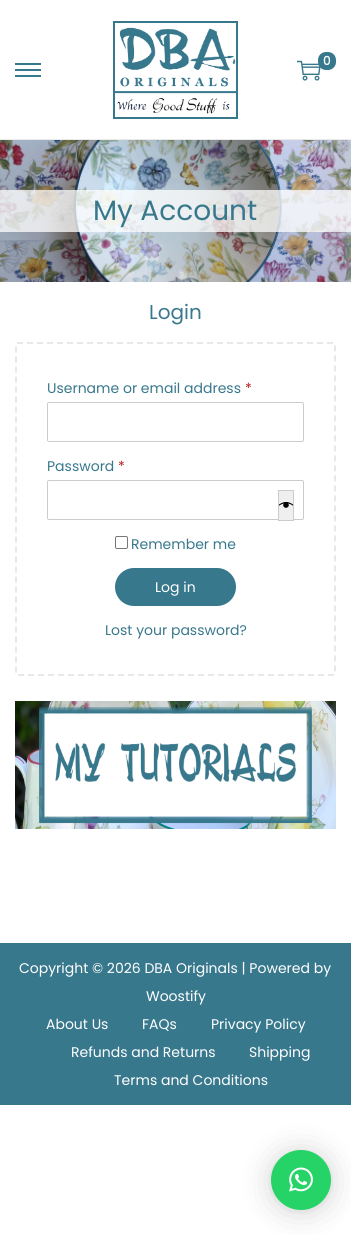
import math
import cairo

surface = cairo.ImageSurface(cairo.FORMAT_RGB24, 351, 1234)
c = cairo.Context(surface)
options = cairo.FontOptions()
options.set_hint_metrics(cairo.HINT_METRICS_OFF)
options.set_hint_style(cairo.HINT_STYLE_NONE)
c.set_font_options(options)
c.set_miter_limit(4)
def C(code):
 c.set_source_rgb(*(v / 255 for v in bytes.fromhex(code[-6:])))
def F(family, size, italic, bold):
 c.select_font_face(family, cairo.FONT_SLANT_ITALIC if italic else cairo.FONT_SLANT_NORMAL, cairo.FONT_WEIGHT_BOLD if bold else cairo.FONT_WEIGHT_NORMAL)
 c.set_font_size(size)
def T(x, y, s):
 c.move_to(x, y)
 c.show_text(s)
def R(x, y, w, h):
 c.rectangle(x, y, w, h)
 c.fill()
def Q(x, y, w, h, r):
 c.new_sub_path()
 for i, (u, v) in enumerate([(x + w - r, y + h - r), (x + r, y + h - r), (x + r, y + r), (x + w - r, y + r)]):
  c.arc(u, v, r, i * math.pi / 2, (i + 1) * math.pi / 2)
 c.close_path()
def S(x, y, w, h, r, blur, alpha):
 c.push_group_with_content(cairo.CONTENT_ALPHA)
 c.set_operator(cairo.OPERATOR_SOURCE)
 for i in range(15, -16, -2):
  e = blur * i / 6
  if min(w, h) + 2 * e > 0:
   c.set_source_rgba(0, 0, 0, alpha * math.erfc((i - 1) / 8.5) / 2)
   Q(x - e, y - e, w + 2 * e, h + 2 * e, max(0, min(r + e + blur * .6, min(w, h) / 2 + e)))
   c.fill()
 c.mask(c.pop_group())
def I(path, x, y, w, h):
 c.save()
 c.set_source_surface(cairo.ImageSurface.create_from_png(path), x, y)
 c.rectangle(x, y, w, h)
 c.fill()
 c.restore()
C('ffffff')
c.paint()
C('eaeaea')
R(0,139,351,1)
I('1.png',113,21,125,98)
I('2.png',297,60,24,21)
C('38788d')
Q(318,52,18,18,8)
c.fill()
F('Poppins',12,0,1)
C('ffffff')
T(323,65,'0')
C('38788d')
R(15,69,26,2)
R(15,63,26,2)
R(15,75,26,2)
I('3.png',0,140,351,142)
c.set_source_rgba(1,1,1,0.75)
R(0,190,351,42)
F('Poppins',28,0,0)
C('38788d')
T(93,220,'My Account')
F('Poppins',20,0,0)
T(149,319,'Login')
c.new_path()
c.move_to(17,343)
c.line_to(334,343)
c.curve_to(334.5,343,335,343.5,335,344)
c.line_to(335,674)
c.curve_to(335,674.5,334.5,675,334,675)
c.line_to(17,675)
c.curve_to(16.5,675,16,674.5,16,674)
c.line_to(16,344)
c.curve_to(16,343.5,16.5,343,17,343)
c.close_path()
C('e8e8e8')
c.set_dash([6,4])
c.stroke()
F('Poppins',14,0,0)
C('38788d')
T(47,393,'Username or email address')
C('b22222')
T(245,393,'*')
Q(47.5,402.5,256,39,1.5)
C('cccccc')
c.set_line_width(1)
c.set_dash([])
c.stroke()
C('38788d')
T(47,471,'Password')
C('b22222')
T(118,471,'*')
Q(47.5,480.5,256,39,1.5)
C('cccccc')
c.stroke()
C('efefef')
c.rectangle(278.5,490.5,15,30)
c.fill_preserve()
C('cccccc')
c.stroke()
I('4.png',279,501,14,7)
Q(115.5,536.5,12,12,1.5)
C('767676')
c.stroke()
C('38788d')
T(131,549,'Remember me')
Q(115,568,121,38,19)
c.fill()
C('ffffff')
T(155,592,'Log in')
C('38788d')
T(105,635,'Lost your password?')
I('5.png',15,701,321,128)
R(0,943,351,162)
C('ffffff')
T(19,973,'Copyright © 2026 DBA Originals | Powered by')
T(146,1001,'Woostify')
T(46,1029,'About Us')
T(142,1029,'FAQs')
T(211,1029,'Privacy Policy')
T(71,1057,'Refunds and Returns')
T(249,1057,'Shipping')
T(114,1085,'Terms and Conditions')
C('000000')
S(271,1152,60,60,30,16,.16)
S(271,1151,60,60,30,3,.06)
C('25d366')
c.arc(301,1180,30,0,2 * math.pi)
c.fill()
I('6.png',289,1167,24,25)
surface.write_to_png('o.png')
